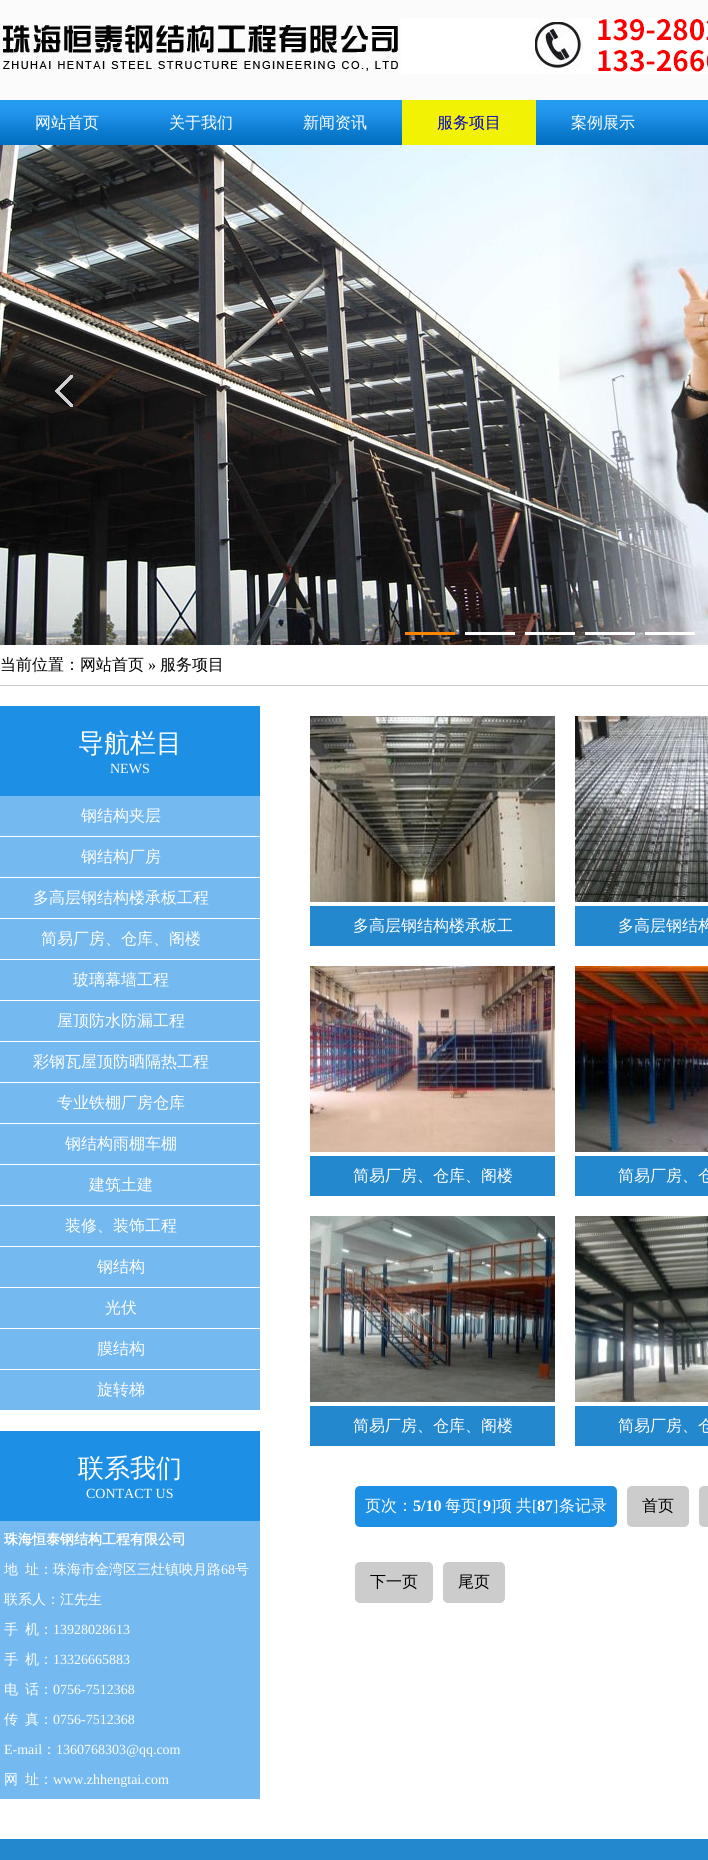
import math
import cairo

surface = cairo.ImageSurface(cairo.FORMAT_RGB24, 708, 1860)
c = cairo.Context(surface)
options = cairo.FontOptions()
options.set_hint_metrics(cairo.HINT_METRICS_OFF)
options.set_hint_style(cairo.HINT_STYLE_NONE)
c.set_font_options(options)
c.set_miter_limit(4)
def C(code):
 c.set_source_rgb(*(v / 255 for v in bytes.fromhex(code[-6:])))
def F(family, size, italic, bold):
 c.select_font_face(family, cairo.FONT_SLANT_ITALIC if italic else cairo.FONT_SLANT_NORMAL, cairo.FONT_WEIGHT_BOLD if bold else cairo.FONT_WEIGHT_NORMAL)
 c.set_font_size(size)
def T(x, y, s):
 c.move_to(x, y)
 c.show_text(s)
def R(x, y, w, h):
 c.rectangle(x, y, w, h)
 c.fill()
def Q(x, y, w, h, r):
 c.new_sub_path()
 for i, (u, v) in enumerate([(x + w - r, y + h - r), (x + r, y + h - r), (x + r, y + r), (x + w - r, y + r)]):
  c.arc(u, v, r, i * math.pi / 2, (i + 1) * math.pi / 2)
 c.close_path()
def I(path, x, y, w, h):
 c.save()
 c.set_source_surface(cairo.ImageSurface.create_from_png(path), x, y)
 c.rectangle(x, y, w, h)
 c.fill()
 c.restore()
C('ffffff')
c.paint()
C('fbfbfb')
R(0,0,708,100)
I('1.png',0,18,708,56)
I('2.png',0,100,708,45)
F('WenQuanYi Zen Hei Medium',16,0,0)
C('ffffff')
T(35,128,'网站首页')
T(169,128,'关于我们')
T(303,128,'新闻资讯')
C('f2f204')
R(402,100,134,45)
C('0000cc')
T(437,128,'服务项目')
C('ffffff')
T(571,128,'案例展示')
I('3.png',0,145,708,500)
I('4.png',55,375,18,32)
C('ff8400')
R(405,632,50,3)
C('ffffff')
R(465,632,50,3)
R(525,632,50,3)
R(585,632,50,3)
R(645,632,50,3)
C('cccccc')
R(0,685,708,1)
C('000000')
T(0,670,'当前位置：网站首页')
F('Liberation Serif',16,0,0)
T(148,670,'»')
F('WenQuanYi Zen Hei Medium',16,0,0)
T(160,670,'服务项目')
C('1d8fe5')
R(0,706,260,90)
F('WenQuanYi Zen Hei Medium',26,0,0)
C('ffffff')
T(78,752,'导航栏目')
F('Liberation Serif',14,0,0)
T(110,773,'NEWS')
C('74b9f0')
R(0,796,260,40)
F('WenQuanYi Zen Hei Medium',16,0,0)
C('ffffff')
T(81,821,'钢结构夹层')
C('74b9f0')
R(0,837,260,40)
C('ffffff')
T(81,862,'钢结构厂房')
C('74b9f0')
R(0,878,260,40)
C('ffffff')
T(33,903,'多高层钢结构楼承板工程')
C('74b9f0')
R(0,919,260,40)
C('ffffff')
T(41,944,'简易厂房、仓库、阁楼')
C('74b9f0')
R(0,960,260,40)
C('ffffff')
T(73,985,'玻璃幕墙工程')
C('74b9f0')
R(0,1001,260,40)
C('ffffff')
T(57,1026,'屋顶防水防漏工程')
C('74b9f0')
R(0,1042,260,40)
C('ffffff')
T(33,1067,'彩钢瓦屋顶防晒隔热工程')
C('74b9f0')
R(0,1083,260,40)
C('ffffff')
T(57,1108,'专业铁棚厂房仓库')
C('74b9f0')
R(0,1124,260,40)
C('ffffff')
T(65,1149,'钢结构雨棚车棚')
C('74b9f0')
R(0,1165,260,40)
C('ffffff')
T(89,1190,'建筑土建')
C('74b9f0')
R(0,1206,260,40)
C('ffffff')
T(65,1231,'装修、装饰工程')
C('74b9f0')
R(0,1247,260,40)
C('ffffff')
T(97,1272,'钢结构')
C('74b9f0')
R(0,1288,260,40)
C('ffffff')
T(105,1313,'光伏')
C('74b9f0')
R(0,1329,260,40)
C('ffffff')
T(97,1354,'膜结构')
C('74b9f0')
R(0,1370,260,40)
C('ffffff')
T(97,1395,'旋转梯')
C('1d8fe5')
R(0,1431,260,90)
F('WenQuanYi Zen Hei Medium',26,0,0)
C('ffffff')
T(78,1477,'联系我们')
F('Liberation Serif',14,0,0)
T(86,1498,'CONTACT US')
C('74b9f0')
R(0,1521,260,278)
F('WenQuanYi Zen Hei',14,0,1)
C('ffffff')
T(4,1544,'珠海恒泰钢结构工程有限公司')
F('WenQuanYi Zen Hei Medium',14,0,0)
T(4,1574,'地')
T(25,1574,'址：珠海市金湾区三灶镇咉月路')
F('Liberation Serif',14,0,0)
T(221,1574,'68')
F('WenQuanYi Zen Hei Medium',14,0,0)
T(235,1574,'号')
T(4,1604,'联系人：江先生')
T(4,1634,'手')
T(25,1634,'机：')
F('Liberation Serif',14,0,0)
T(53,1634,'13928028613')
F('WenQuanYi Zen Hei Medium',14,0,0)
T(4,1664,'手')
T(25,1664,'机：')
F('Liberation Serif',14,0,0)
T(53,1664,'13326665883')
F('WenQuanYi Zen Hei Medium',14,0,0)
T(4,1694,'电')
T(25,1694,'话：')
F('Liberation Serif',14,0,0)
T(53,1694,'0756-7512368')
F('WenQuanYi Zen Hei Medium',14,0,0)
T(4,1724,'传')
T(25,1724,'真：')
F('Liberation Serif',14,0,0)
T(53,1724,'0756-7512368')
T(4,1754,'E-mail')
F('WenQuanYi Zen Hei Medium',14,0,0)
T(42,1754,'：')
F('Liberation Serif',14,0,0)
T(56,1754,'1360768303@qq.com')
F('WenQuanYi Zen Hei Medium',14,0,0)
T(4,1784,'网')
T(25,1784,'址：')
F('Liberation Serif',14,0,0)
T(53,1784,'www.zhhengtai.com')
I('5.png',310,716,245,186)
C('2488cf')
R(310,906,245,40)
F('WenQuanYi Zen Hei Medium',16,0,0)
C('ffffff')
T(353,931,'多高层钢结构楼承板工')
I('6.png',575,716,133,186)
C('2488cf')
R(575,906,133,40)
C('ffffff')
T(618,931,'多高层钢结构')
I('7.png',310,966,245,186)
C('2488cf')
R(310,1156,245,40)
C('ffffff')
T(353,1181,'简易厂房、仓库、阁楼')
I('8.png',575,966,133,186)
C('2488cf')
R(575,1156,133,40)
C('ffffff')
T(618,1181,'简易厂房、仓')
I('9.png',310,1216,245,186)
C('2488cf')
R(310,1406,245,40)
C('ffffff')
T(353,1431,'简易厂房、仓库、阁楼')
I('10.png',575,1216,133,186)
C('2488cf')
R(575,1406,133,40)
C('ffffff')
T(618,1431,'简易厂房、仓')
C('1d8fe5')
Q(355,1486,262,41,5)
c.fill()
C('ffffff')
T(365,1511,'页次：')
F('Liberation Serif',16,0,1)
T(413,1511,'5/10')
F('WenQuanYi Zen Hei Medium',16,0,0)
T(445,1511,'每页')
F('Liberation Serif',16,0,0)
T(477,1511,'[')
F('Liberation Serif',16,0,1)
T(483,1511,'9')
F('Liberation Serif',16,0,0)
T(491,1511,']')
F('WenQuanYi Zen Hei Medium',16,0,0)
T(496,1511,'项')
T(516,1511,'共')
F('Liberation Serif',16,0,0)
T(532,1511,'[')
F('Liberation Serif',16,0,1)
T(537,1511,'87')
F('Liberation Serif',16,0,0)
T(553,1511,']')
F('WenQuanYi Zen Hei Medium',16,0,0)
T(559,1511,'条记录')
C('cccccc')
Q(627,1486,62,41,5)
c.fill()
C('000000')
T(642,1511,'首页')
C('cccccc')
Q(699,1486,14,41,5)
c.fill()
Q(355,1562,78,41,5)
c.fill()
C('000000')
T(370,1587,'下一页')
C('cccccc')
Q(443,1562,62,41,5)
c.fill()
C('000000')
T(458,1587,'尾页')
C('2488cf')
R(0,1839,708,21)
surface.write_to_png('o.png')
